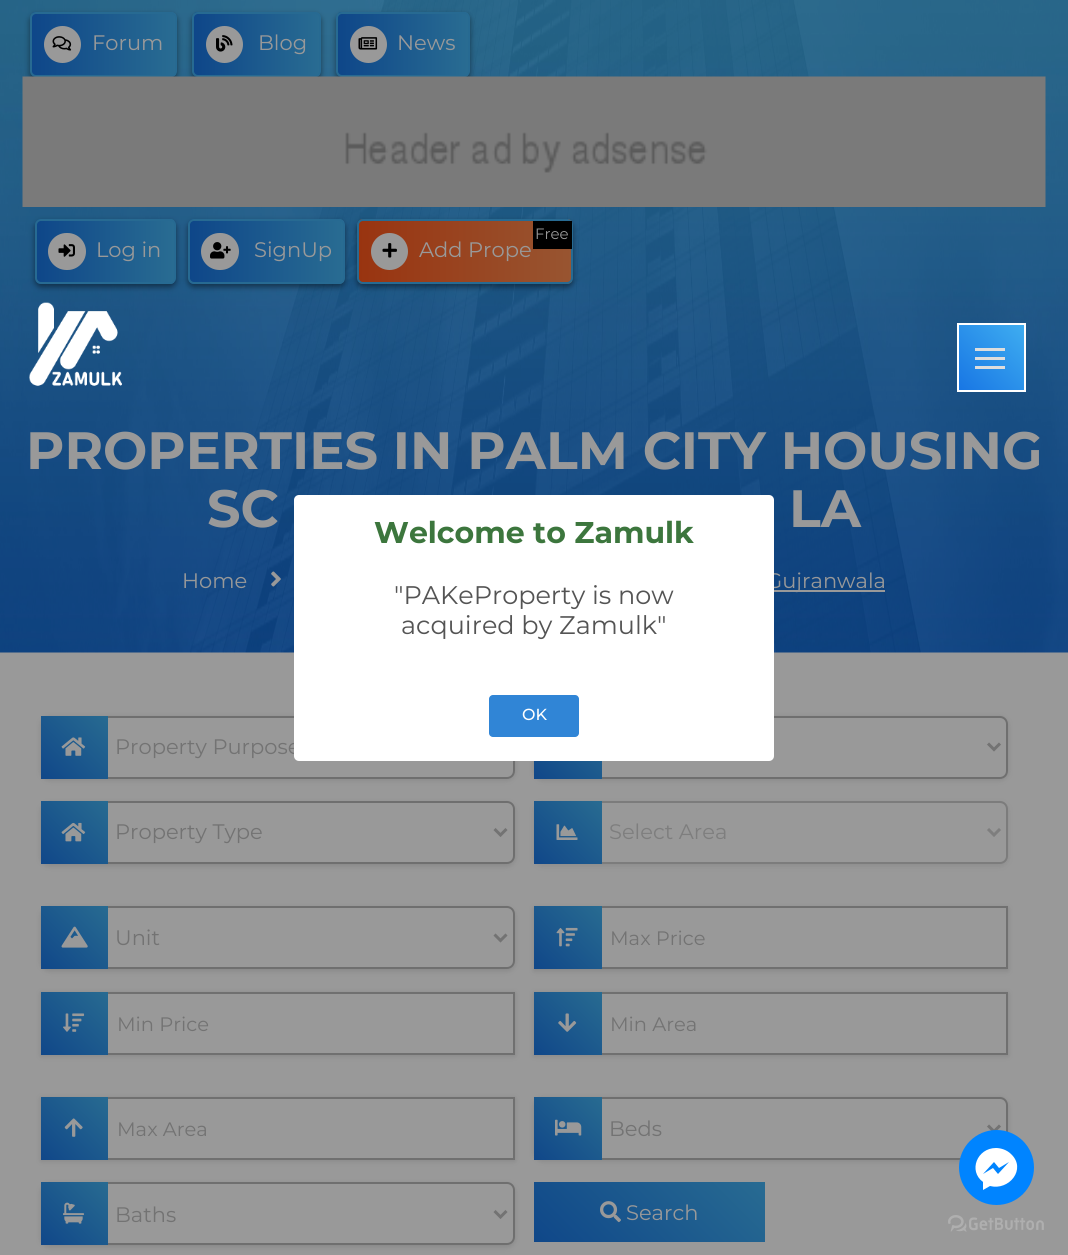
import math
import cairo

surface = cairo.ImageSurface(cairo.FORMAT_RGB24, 1068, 1255)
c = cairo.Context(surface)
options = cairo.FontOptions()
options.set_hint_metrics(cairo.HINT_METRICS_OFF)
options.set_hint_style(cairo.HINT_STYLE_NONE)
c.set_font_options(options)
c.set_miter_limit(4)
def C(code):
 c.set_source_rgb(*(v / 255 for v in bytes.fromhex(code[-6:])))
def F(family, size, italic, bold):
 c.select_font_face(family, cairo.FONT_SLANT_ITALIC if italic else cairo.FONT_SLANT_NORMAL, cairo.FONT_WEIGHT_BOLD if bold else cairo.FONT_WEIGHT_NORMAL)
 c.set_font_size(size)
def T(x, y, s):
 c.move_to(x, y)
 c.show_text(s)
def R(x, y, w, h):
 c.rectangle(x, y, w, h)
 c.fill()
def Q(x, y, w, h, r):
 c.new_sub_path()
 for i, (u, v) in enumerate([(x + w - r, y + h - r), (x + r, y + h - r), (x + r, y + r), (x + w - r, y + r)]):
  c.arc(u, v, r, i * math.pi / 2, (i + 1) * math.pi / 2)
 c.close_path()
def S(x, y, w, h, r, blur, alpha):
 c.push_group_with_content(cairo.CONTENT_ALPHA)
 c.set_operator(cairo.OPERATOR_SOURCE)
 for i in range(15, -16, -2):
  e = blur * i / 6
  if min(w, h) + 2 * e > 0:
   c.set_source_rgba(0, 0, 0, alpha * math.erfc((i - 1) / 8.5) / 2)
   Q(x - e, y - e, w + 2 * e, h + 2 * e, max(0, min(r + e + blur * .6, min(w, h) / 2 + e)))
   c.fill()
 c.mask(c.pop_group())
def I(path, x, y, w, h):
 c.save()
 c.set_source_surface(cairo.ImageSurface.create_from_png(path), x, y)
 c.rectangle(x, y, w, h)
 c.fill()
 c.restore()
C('999999')
c.paint()
I('1.png',0,0,1068,653)
C('000000')
S(30,15,147,65,6,3,.45)
c.save()
Q(30,12,147,65,6)
c.clip()
gradient = cairo.LinearGradient(32,44,176,44)
gradient.add_color_stop_rgba(0,0.055,0.275,0.537,1)
gradient.add_color_stop_rgba(1,0.161,0.424,0.573,1)
c.set_source(gradient)
R(32,12,144,65)
c.restore()
Q(31,13,145,63,5)
C('276a92')
c.stroke()
C('999999')
c.arc(62.5,44.5,18.5,0,2 * math.pi)
c.fill()
I('2.png',52,36,20,15)
F('Montserrat',21,0,0)
T(92,50,'Forum')
C('000000')
S(192,15,129,65,6,3,.45)
c.save()
Q(192,12,129,65,6)
c.clip()
gradient = cairo.LinearGradient(194,44,320,44)
gradient.add_color_stop_rgba(0,0.055,0.275,0.537,1)
gradient.add_color_stop_rgba(1,0.161,0.424,0.573,1)
c.set_source(gradient)
R(194,12,126,65)
c.restore()
Q(193,13,127,63,5)
C('276a92')
c.stroke()
C('999999')
c.arc(224.5,44.5,18.5,0,2 * math.pi)
c.fill()
I('3.png',216,35,17,17)
T(258,50,'Blog')
C('000000')
S(336,15,134,65,6,3,.45)
c.save()
Q(336,12,134,65,6)
c.clip()
gradient = cairo.LinearGradient(338,44,468,44)
gradient.add_color_stop_rgba(0,0.055,0.275,0.537,1)
gradient.add_color_stop_rgba(1,0.161,0.424,0.573,1)
c.set_source(gradient)
R(338,12,130,65)
c.restore()
Q(337,13,132,63,5)
C('276a92')
c.stroke()
C('999999')
c.arc(368.5,44.5,18.5,0,2 * math.pi)
c.fill()
I('4.png',358,37,20,13)
T(397,50,'News')
I('5.png',22,76,1024,131)
C('000000')
S(35,222,141,65,6,3,.45)
c.save()
Q(35,219,141,65,6)
c.clip()
gradient = cairo.LinearGradient(36,251,174,251)
gradient.add_color_stop_rgba(0,0.055,0.275,0.537,1)
gradient.add_color_stop_rgba(1,0.161,0.424,0.573,1)
c.set_source(gradient)
R(36,219,138,65)
c.restore()
Q(36,220,139,63,5)
C('276a92')
c.stroke()
C('999999')
Q(48,233,38,37,18.5)
c.fill()
I('6.png',58,244,17,13)
T(96,257,'Log in')
C('000000')
S(188,222,157,65,6,3,.45)
c.save()
Q(188,219,157,65,6)
c.clip()
gradient = cairo.LinearGradient(189,251,344,251)
gradient.add_color_stop_rgba(0,0.055,0.275,0.537,1)
gradient.add_color_stop_rgba(1,0.161,0.424,0.573,1)
c.set_source(gradient)
R(189,219,155,65)
c.restore()
Q(189,220,155,63,5)
C('276a92')
c.stroke()
C('999999')
Q(201,233,38,37,18.5)
c.fill()
I('7.png',210,242,21,17)
T(254,257,'SignUp')
C('000000')
S(357,222,216,65,6,3,.45)
c.save()
Q(357,219,216,65,6)
c.clip()
gradient = cairo.LinearGradient(359,251,572,251)
gradient.add_color_stop_rgba(0,0.6,0.204,0.063,1)
gradient.add_color_stop_rgba(1,0.596,0.333,0.192,1)
c.set_source(gradient)
R(359,219,213,65)
c.restore()
Q(358,220,214,63,5)
C('276a92')
c.stroke()
C('999999')
c.arc(389.5,251.5,18.5,0,2 * math.pi)
c.fill()
I('8.png',382,243,15,15)
T(419,257,'Add Prope')
C('000000')
R(533,221,39,28)
F('Montserrat',15,0,0)
C('999999')
T(535,239,'Free')
I('9.png',29,302,93,84)
gradient = cairo.LinearGradient(959,390,1025,324)
gradient.add_color_stop_rgba(0,0.094,0.463,0.894,1)
gradient.add_color_stop_rgba(1,0.247,0.682,0.945,1)
c.set_source(gradient)
R(959,325,65,65)
c.rectangle(958,324,67,67)
C('ffffff')
c.stroke()
C('dddddd')
R(975,348,30,3)
R(975,357,30,3)
R(975,366,30,3)
F('Montserrat',52.5,0,1)
C('999999')
T(26,469,'PROPERTIES IN PALM CITY HOUSING')
T(207,527,'SC')
T(789,527,'LA')
F('Montserrat',21,0,0)
T(182,588,'Home')
I('10.png',271,571,10,16)
R(774,590,111,2)
T(766,588,'Gujranwala')
C('000000')
S(41,717,474,63,8,3,.12)
C('999999')
Q(41,716,474,63,8)
c.fill()
Q(42,717,472,61,7)
c.set_source_rgba(0.302,0.302,0.302,0.54)
c.stroke()
C('737373')
T(115,754,'Property Purpose')
C('000000')
S(534,717,474,63,8,3,.12)
C('999999')
Q(534,716,474,63,8)
c.fill()
Q(535,717,472,61,7)
c.set_source_rgba(0.302,0.302,0.302,0.54)
c.stroke()
C('ffffff')
Q(294,495,480,266,5)
c.fill()
F('Montserrat',30,0,1)
C('3c763d')
T(374,543,'Welcome to Zamulk')
F('Montserrat',25.5,0,0)
C('545454')
T(394,604,'"PAKeProperty is now')
T(401,634,'acquired by Zamulk"')
C('3085d6')
Q(489,695,90,42,4)
c.fill()
F('Montserrat Medium',16,0,0)
C('ffffff')
T(522,720,'OK')
gradient = cairo.LinearGradient(42,780,107,714)
gradient.add_color_stop_rgba(0,0.063,0.278,0.537,1)
gradient.add_color_stop_rgba(1,0.157,0.42,0.569,1)
c.set_source(gradient)
R(41,716,67,63)
I('11.png',61,737,25,19)
C('000000')
S(41,803,474,63,8,3,.12)
C('999999')
Q(41,801,474,63,8)
c.fill()
Q(42,802,472,61,7)
c.set_source_rgba(0.302,0.302,0.302,0.54)
c.stroke()
gradient = cairo.LinearGradient(42,865,107,800)
gradient.add_color_stop_rgba(0,0.063,0.278,0.537,1)
gradient.add_color_stop_rgba(1,0.157,0.42,0.569,1)
c.set_source(gradient)
R(41,801,67,63)
I('12.png',61,822,25,20)
c.new_path()
c.move_to(494.5,829)
c.line_to(500.5,835)
c.line_to(506.5,829)
C('737373')
c.set_line_width(3)
c.stroke()
F('Montserrat',21,0,0)
T(115,839,'Property Type')
c.new_path()
c.move_to(988,743.5)
c.line_to(994,749.5)
c.line_to(1000,743.5)
c.stroke()
gradient = cairo.LinearGradient(535,780,600,714)
gradient.add_color_stop_rgba(0,0.063,0.278,0.537,1)
gradient.add_color_stop_rgba(1,0.157,0.42,0.569,1)
c.set_source(gradient)
R(534,761,68,18)
C('2e2e2e')
S(534,803,474,63,8,3,.12)
C('999999')
Q(535,802,472,61,7)
c.fill_preserve()
C('7c7c7c')
c.set_line_width(2)
c.stroke()
gradient = cairo.LinearGradient(535,865,600,800)
gradient.add_color_stop_rgba(0,0.063,0.278,0.537,1)
gradient.add_color_stop_rgba(1,0.157,0.42,0.569,1)
c.set_source(gradient)
R(534,801,68,63)
I('13.png',556,824,22,16)
c.new_path()
c.move_to(988,829)
c.line_to(994,835)
c.line_to(1000,829)
C('7e7e7e')
c.set_line_width(3)
c.stroke()
T(609,839,'Select Area')
C('000000')
S(41,908,474,63,8,3,.12)
C('999999')
Q(41,906,474,63,8)
c.fill()
Q(42,907,472,61,7)
c.set_source_rgba(0.302,0.302,0.302,0.54)
c.set_line_width(2)
c.stroke()
gradient = cairo.LinearGradient(42,970,107,905)
gradient.add_color_stop_rgba(0,0.063,0.278,0.537,1)
gradient.add_color_stop_rgba(1,0.157,0.42,0.569,1)
c.set_source(gradient)
R(41,906,67,63)
I('14.png',61,926,27,22)
c.new_path()
c.move_to(494.5,934.5)
c.line_to(500.5,940.5)
c.line_to(506.5,934.5)
C('737373')
c.set_line_width(3)
c.stroke()
T(115,945,'Unit')
C('000000')
S(41,993,474,63,0,3,.12)
C('999999')
R(108,994,405,59)
c.rectangle(42,993,472,61)
C('707070')
c.set_line_width(2)
c.stroke()
gradient = cairo.LinearGradient(42,1056,107,990)
gradient.add_color_stop_rgba(0,0.063,0.278,0.537,1)
gradient.add_color_stop_rgba(1,0.157,0.42,0.569,1)
c.set_source(gradient)
R(41,992,67,63)
I('15.png',63,1013,22,19)
F('Montserrat',19.5,0,0)
C('737373')
T(117,1031,'Min Price')
c.save()
c.set_fill_rule(cairo.FILL_RULE_EVEN_ODD)
c.new_path()
c.move_to(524,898)
c.line_to(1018,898)
c.line_to(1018,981)
c.line_to(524,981)
c.close_path()
c.move_to(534,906)
c.line_to(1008,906)
c.line_to(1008,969)
c.line_to(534,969)
c.close_path()
c.clip()
C('000000')
S(534,908,474,63,0,3,.12)
c.restore()
c.rectangle(535,907,472,61)
C('707070')
c.stroke()
gradient = cairo.LinearGradient(535,970,600,905)
gradient.add_color_stop_rgba(0,0.063,0.278,0.537,1)
gradient.add_color_stop_rgba(1,0.157,0.42,0.569,1)
c.set_source(gradient)
R(534,906,68,63)
I('16.png',556,927,22,20)
C('737373')
T(610,945,'Max Price')
C('000000')
S(534,993,474,63,0,3,.12)
C('999999')
R(602,994,404,59)
c.rectangle(535,993,472,61)
C('707070')
c.stroke()
gradient = cairo.LinearGradient(535,1056,600,990)
gradient.add_color_stop_rgba(0,0.063,0.278,0.537,1)
gradient.add_color_stop_rgba(1,0.157,0.42,0.569,1)
c.set_source(gradient)
R(534,992,68,63)
I('17.png',558,1013,19,19)
C('737373')
T(610,1031,'Min Area')
C('000000')
S(41,1098,474,63,0,3,.12)
C('999999')
R(108,1099,405,59)
c.rectangle(42,1098,472,61)
C('707070')
c.stroke()
gradient = cairo.LinearGradient(42,1161,107,1095)
gradient.add_color_stop_rgba(0,0.063,0.278,0.537,1)
gradient.add_color_stop_rgba(1,0.157,0.42,0.569,1)
c.set_source(gradient)
R(41,1097,67,63)
I('18.png',64,1118,19,19)
C('737373')
T(117,1136,'Max Area')
C('000000')
S(41,1184,474,63,8,3,.12)
C('999999')
Q(41,1182,474,63,8)
c.fill()
Q(42,1183,472,61,7)
c.set_source_rgba(0.302,0.302,0.302,0.54)
c.stroke()
gradient = cairo.LinearGradient(42,1246,107,1181)
gradient.add_color_stop_rgba(0,0.063,0.278,0.537,1)
gradient.add_color_stop_rgba(1,0.157,0.42,0.569,1)
c.set_source(gradient)
R(41,1182,67,63)
I('19.png',63,1202,21,22)
c.new_path()
c.move_to(494.5,1211)
c.line_to(500.5,1217)
c.line_to(506.5,1211)
C('737373')
c.set_line_width(3)
c.stroke()
F('Montserrat',21,0,0)
T(115,1222,'Baths')
C('000000')
S(534,1098,474,63,8,3,.12)
C('999999')
Q(534,1097,474,63,8)
c.fill()
Q(535,1098,472,61,7)
c.set_source_rgba(0.302,0.302,0.302,0.54)
c.set_line_width(2)
c.stroke()
gradient = cairo.LinearGradient(535,1161,600,1095)
gradient.add_color_stop_rgba(0,0.063,0.278,0.537,1)
gradient.add_color_stop_rgba(1,0.157,0.42,0.569,1)
c.set_source(gradient)
R(534,1097,68,63)
I('20.png',555,1119,27,17)
c.new_path()
c.move_to(988,1125.5)
c.line_to(994,1131.5)
c.line_to(1000,1125.5)
C('737373')
c.set_line_width(3)
c.stroke()
T(609,1136,'Beds')
gradient = cairo.LinearGradient(577,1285,722,1139)
gradient.add_color_stop_rgba(0,0.059,0.278,0.537,1)
gradient.add_color_stop_rgba(1,0.157,0.42,0.573,1)
c.set_source(gradient)
R(534,1182,231,60)
I('21.png',600,1201,21,22)
C('999999')
T(626,1220,'Search')
C('0084ff')
c.new_path()
c.arc(996.5,1167.5,37.5,0,2 * math.pi)
c.fill()
C('ffffff')
c.new_path()
c.move_to(996,1148)
c.curve_to(977,1148,968,1171,983,1182)
c.line_to(983,1190)
c.line_to(990,1186)
c.curve_to(1009,1191,1027,1169,1011,1154)
c.curve_to(1007,1150,1001,1148,996,1148)
c.close_path()
c.move_to(998,1174)
c.line_to(993,1168)
c.line_to(983,1174)
c.line_to(994,1162)
c.line_to(999,1168)
c.line_to(1009,1162)
c.close_path()
c.fill()
I('22.png',948,1215,96,17)
surface.write_to_png('o.png')
